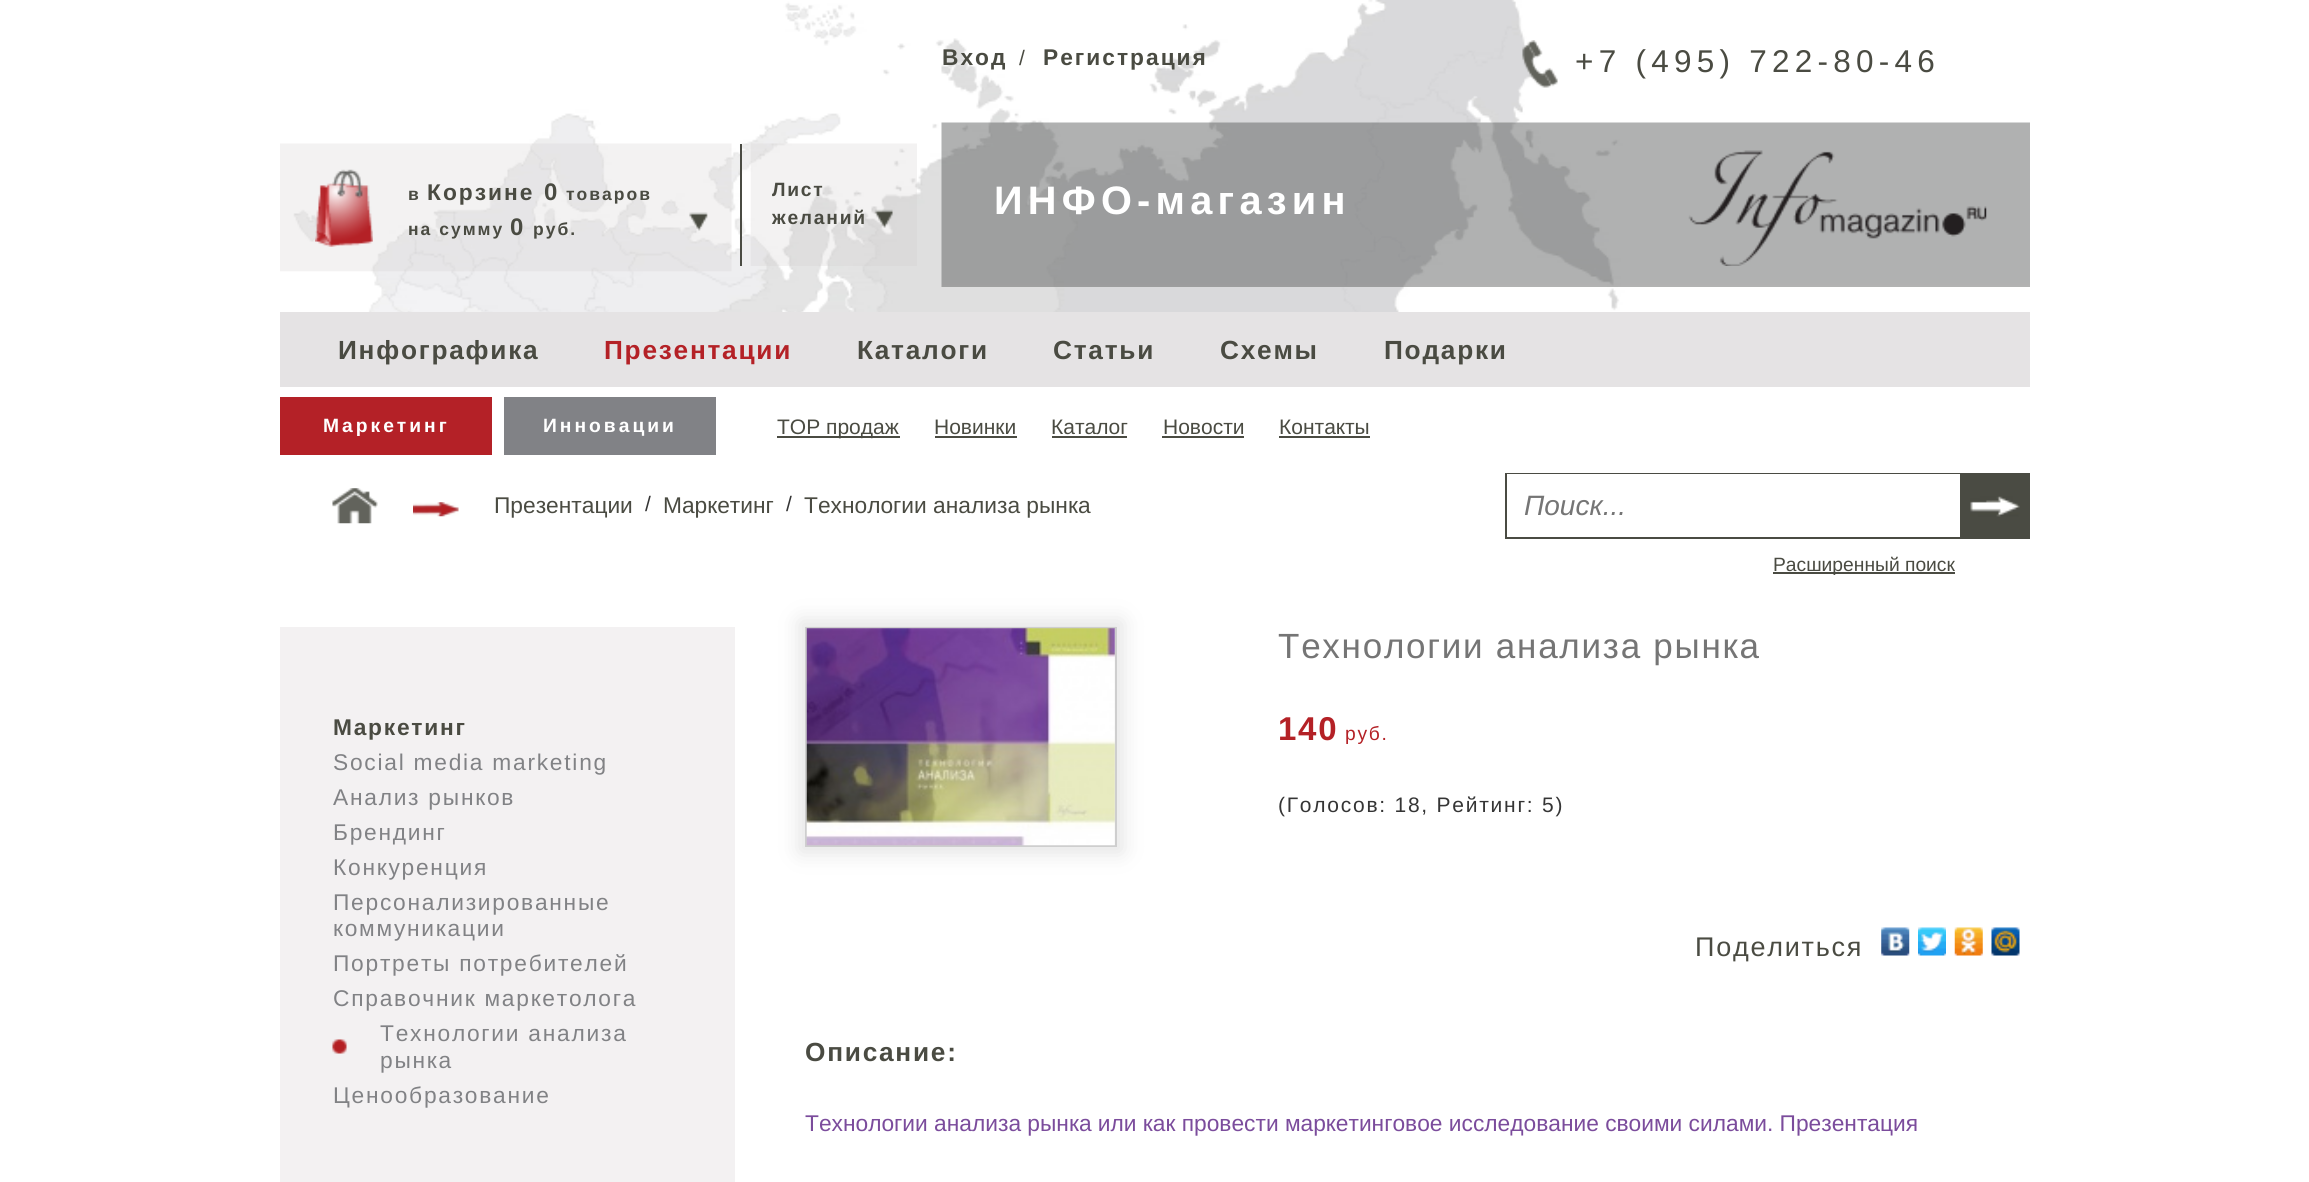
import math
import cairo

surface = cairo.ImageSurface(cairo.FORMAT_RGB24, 2309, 1182)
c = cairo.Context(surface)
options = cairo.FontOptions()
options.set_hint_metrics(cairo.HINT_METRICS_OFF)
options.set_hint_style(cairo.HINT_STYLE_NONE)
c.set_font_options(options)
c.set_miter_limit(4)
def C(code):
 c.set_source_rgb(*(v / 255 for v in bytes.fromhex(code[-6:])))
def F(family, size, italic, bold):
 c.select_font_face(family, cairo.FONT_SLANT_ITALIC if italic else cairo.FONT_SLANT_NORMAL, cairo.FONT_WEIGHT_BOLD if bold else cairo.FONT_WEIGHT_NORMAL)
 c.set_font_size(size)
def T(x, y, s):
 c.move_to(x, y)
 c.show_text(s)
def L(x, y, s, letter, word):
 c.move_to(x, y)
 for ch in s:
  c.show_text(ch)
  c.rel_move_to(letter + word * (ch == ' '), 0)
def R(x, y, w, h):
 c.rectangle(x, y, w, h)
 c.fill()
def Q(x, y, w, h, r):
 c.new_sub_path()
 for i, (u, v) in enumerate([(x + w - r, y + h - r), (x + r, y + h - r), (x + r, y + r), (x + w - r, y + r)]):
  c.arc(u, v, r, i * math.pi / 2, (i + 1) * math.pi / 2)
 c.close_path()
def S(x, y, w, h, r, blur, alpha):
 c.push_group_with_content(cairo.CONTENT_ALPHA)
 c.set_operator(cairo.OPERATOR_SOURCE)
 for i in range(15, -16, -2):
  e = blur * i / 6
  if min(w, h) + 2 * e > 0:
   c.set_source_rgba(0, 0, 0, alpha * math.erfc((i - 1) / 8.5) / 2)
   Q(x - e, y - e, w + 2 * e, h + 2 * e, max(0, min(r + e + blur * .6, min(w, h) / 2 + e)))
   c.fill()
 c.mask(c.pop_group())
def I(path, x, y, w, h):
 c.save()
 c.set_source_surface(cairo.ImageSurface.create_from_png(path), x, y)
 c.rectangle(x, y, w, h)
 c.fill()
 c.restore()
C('ffffff')
c.paint()
I('1.png',293,0,1346,312)
F('Liberation Sans',22.75,0,1)
C('4a4b42')
L(942,65,'Вход',2,0)
F('Liberation Sans',21,0,0)
T(1019,65,'/')
F('Liberation Sans',22.75,0,1)
L(1043,65,'Регистрация',2,0)
I('2.png',1522,40,36,48)
F('Liberation Sans',31.5,0,0)
L(1575,72,'+7 (495) 722-80-46',5.25,0)
I('3.png',280,143,452,129)
I('4.png',315,169,58,78)
F('Liberation Sans',17.5,0,1)
L(408,200,'в',2,0)
F('Liberation Sans',22.75,0,1)
L(427,200,'Корзине',2,0)
F('Liberation Sans',24,0,1)
L(544,200,'0',2,0)
F('Liberation Sans',17.5,0,1)
L(566,200,'товаров',2,0)
L(408,235,'на сумму',2,0)
F('Liberation Sans',24,0,1)
L(510,235,'0',2,0)
F('Liberation Sans',17.5,0,1)
L(533,235,'руб.',2,0)
C('4a4b43')
R(740,144,2,122)
I('5.png',750,143,167,123)
F('Liberation Sans',19.25,0,1)
C('4a4b42')
L(772,196,'Лист',1.75,0)
L(772,224,'желаний',1.75,0)
I('6.png',941,122,1089,165)
F('Liberation Sans',39.75,0,1)
C('ffffff')
L(994,214,'ИНФО-магазин',5.25,0)
I('7.png',1688,150,299,116)
C('e5e3e4')
R(280,312,1750,75)
F('Liberation Sans',26.25,0,1)
C('4a4b42')
L(338,359,'Инфографика',1.75,0)
C('b42126')
L(604,359,'Презентации',1.75,0)
C('4a4b42')
L(857,359,'Каталоги',1.75,0)
L(1053,359,'Статьи',1.75,0)
L(1220,359,'Схемы',1.75,0)
L(1384,359,'Подарки',1.75,0)
C('b42127')
R(280,397,212,58)
F('Liberation Sans',19.25,0,1)
C('ffffff')
L(323,432,'Маркетинг',3,0)
C('818286')
R(504,397,212,58)
C('ffffff')
L(543,432,'Инновации',3,0)
C('4a4b42')
R(777,436,123,2)
F('Liberation Sans',21,0,0)
T(777,434,'TOP продаж')
T(934,434,'Новинки')
R(935,436,82,2)
T(1051,434,'Каталог')
R(1052,436,75,2)
T(1163,434,'Новости')
R(1162,436,82,2)
T(1279,434,'Контакты')
R(1279,436,91,2)
I('8.png',332,488,46,36)
I('9.png',413,502,46,15)
F('Liberation Sans',22.75,0,0)
T(494,513,'Презентации')
F('Liberation Sans',21,0,0)
C('353535')
T(645,511,'/')
F('Liberation Sans',22.75,0,0)
C('4a4b42')
T(663,513,'Маркетинг')
F('Liberation Sans',21,0,0)
C('353535')
T(786,511,'/')
F('Liberation Sans',22.75,0,0)
C('4a4b42')
T(804,513,'Технологии анализа рынка')
c.rectangle(1506,474,523,64)
C('4a4b43')
c.stroke()
C('ffffff')
R(1507,474,453,1)
F('Liberation Sans',28,1,0)
C('757575')
T(1524,515,'Поиск...')
C('4a4b43')
R(1960,475,68,62)
I('10.png',1970,496,50,21)
C('4a4b42')
R(1773,572,182,2)
F('Liberation Sans',19.25,0,0)
T(1773,571,'Расширенный поиск')
C('f3f1f2')
R(280,627,455,555)
F('Liberation Sans',22.75,0,1)
C('4a4b42')
L(333,735,'Маркетинг',1.75,0)
F('Liberation Sans',22.75,0,0)
C('818285')
L(333,770,'Social media marketing',1.75,0)
L(333,805,'Анализ рынков',1.75,0)
L(333,840,'Брендинг',1.75,0)
L(333,875,'Конкуренция',1.75,0)
L(333,910,'Персонализированные',1.75,0)
L(333,936,'коммуникации',1.75,0)
L(333,971,'Портреты потребителей',1.75,0)
L(333,1006,'Справочник маркетолога',1.75,0)
I('11.png',332,1039,15,15)
L(380,1041,'Технологии анализа',1.75,0)
L(380,1068,'рынка',1.75,0)
L(333,1103,'Ценообразование',1.75,0)
C('e2e2e2')
S(800,621,322,231,0,10.5,1)
c.rectangle(806,628,310,218)
C('cecece')
c.stroke()
I('12.png',806,628,309,218)
F('Liberation Sans',35,0,0)
C('757575')
L(1278,658,'Технологии анализа рынка',1.75,0)
F('Liberation Sans',33,0,1)
C('b42126')
L(1278,740,'140',1.75,0)
F('Liberation Sans',19.25,0,0)
L(1345,740,'руб.',1.75,0)
F('Liberation Sans',21,0,0)
C('353535')
L(1278,812,'(Голосов: 18, Рейтинг: 5)',1.75,0)
F('Liberation Sans',27,0,0)
C('4a4b42')
L(1695,956,'Поделиться',1.75,0)
I('13.png',1881,927,29,29)
I('14.png',1918,927,28,29)
I('15.png',1954,927,29,29)
I('16.png',1991,927,29,29)
F('Liberation Sans',26.25,0,1)
L(805,1061,'Описание:',1.75,0)
F('Liberation Sans',22.75,0,0)
C('7b4c9c')
T(805,1131,'Технологии анализа рынка или как провести маркетинговое исследование своими силами. Презентация')
surface.write_to_png('o.png')
